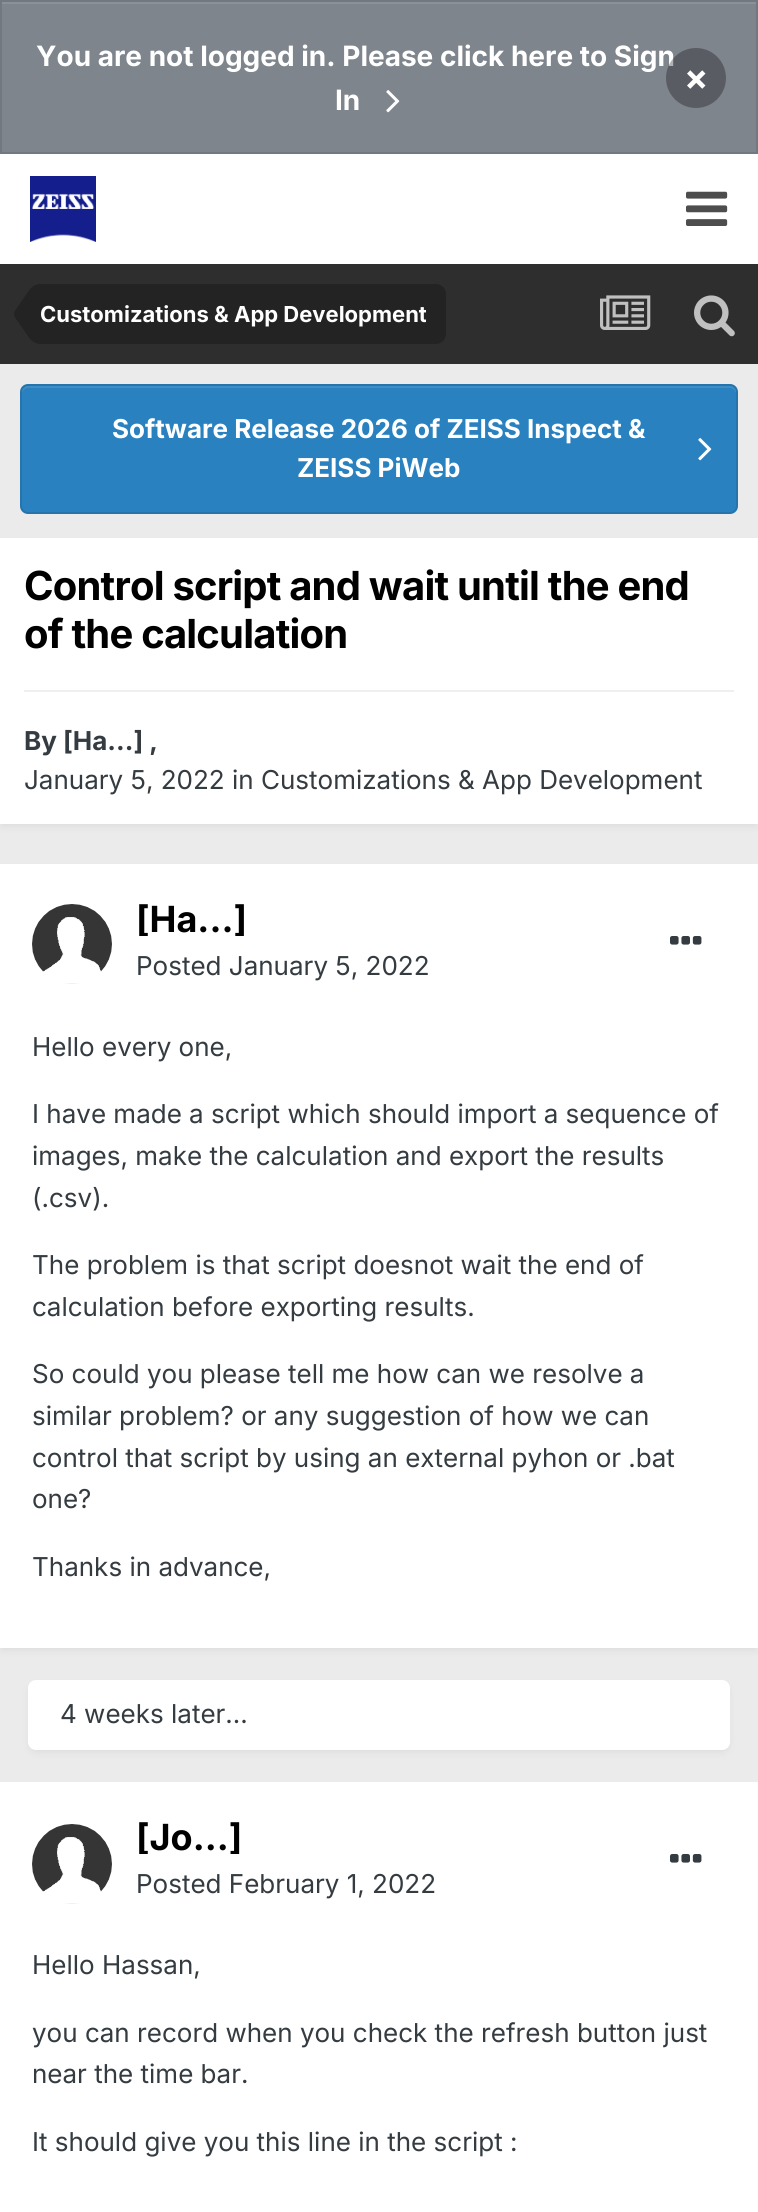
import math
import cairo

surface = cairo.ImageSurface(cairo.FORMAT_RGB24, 758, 2212)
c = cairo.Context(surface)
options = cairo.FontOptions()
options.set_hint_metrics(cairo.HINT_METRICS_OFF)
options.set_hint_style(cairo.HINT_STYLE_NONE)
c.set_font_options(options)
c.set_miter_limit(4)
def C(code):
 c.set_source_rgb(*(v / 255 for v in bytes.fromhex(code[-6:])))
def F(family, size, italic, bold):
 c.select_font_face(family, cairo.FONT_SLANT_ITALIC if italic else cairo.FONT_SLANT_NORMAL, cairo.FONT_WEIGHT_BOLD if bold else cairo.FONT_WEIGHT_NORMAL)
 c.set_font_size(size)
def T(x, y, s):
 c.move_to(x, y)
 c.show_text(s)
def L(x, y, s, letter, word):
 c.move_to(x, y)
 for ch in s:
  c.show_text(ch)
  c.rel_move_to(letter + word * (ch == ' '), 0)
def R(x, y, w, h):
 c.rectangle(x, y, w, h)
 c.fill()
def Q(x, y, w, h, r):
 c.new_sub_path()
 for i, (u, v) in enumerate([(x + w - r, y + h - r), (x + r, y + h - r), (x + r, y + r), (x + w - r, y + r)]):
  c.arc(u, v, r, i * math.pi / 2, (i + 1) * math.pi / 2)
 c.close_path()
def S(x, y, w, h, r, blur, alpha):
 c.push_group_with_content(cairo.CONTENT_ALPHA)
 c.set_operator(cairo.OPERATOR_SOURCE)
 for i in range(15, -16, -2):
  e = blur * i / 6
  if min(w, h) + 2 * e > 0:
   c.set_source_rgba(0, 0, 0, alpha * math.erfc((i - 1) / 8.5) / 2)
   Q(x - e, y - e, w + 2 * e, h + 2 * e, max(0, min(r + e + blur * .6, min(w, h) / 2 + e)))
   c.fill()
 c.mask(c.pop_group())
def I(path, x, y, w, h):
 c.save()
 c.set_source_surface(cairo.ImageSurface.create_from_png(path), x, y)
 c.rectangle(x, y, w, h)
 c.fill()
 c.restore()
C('ebebeb')
c.paint()
C('7f858d')
R(2,4,754,148)
C('8c9198')
R(2,2,754,2)
c.rectangle(1,1,756,152)
C('72787f')
c.stroke()
F('Inter',28,0,1)
C('ffffff')
T(36,66,'You are not logged in. Please click here to Sign')
T(335,110,'In')
I('1.png',386,90,14,23)
c.set_source_rgba(0,0,0,0.3)
c.arc(696,78,30,0,2 * math.pi)
c.fill()
F('Inter',36,0,1)
C('ffffff')
T(684,90,'×')
R(0,154,758,110)
I('2.png',30,176,66,66)
I('3.png',686,191,42,35)
C('2e2e2e')
R(0,264,758,100)
C('232323')
c.new_path()
c.move_to(40,284)
c.line_to(436,284)
c.curve_to(441.5,284,446,288.5,446,294)
c.line_to(446,334)
c.curve_to(446,339.5,441.5,344,436,344)
c.line_to(40,344)
c.close_path()
c.fill()
c.new_path()
c.move_to(40,314)
c.line_to(40,344)
c.curve_to(36.5,344,33,342,30,339)
c.line_to(15,317.5)
c.curve_to(14.5,316.5,14,315.5,14,314)
c.close_path()
c.move_to(40,314)
c.line_to(14,314)
c.curve_to(14,312.5,14.5,311.5,15,310.5)
c.line_to(30,289)
c.curve_to(33,286,36.5,284,40,284)
c.close_path()
c.fill()
c.save()
c.rectangle(40,284,386,60)
c.clip()
F('Inter',22,0,1)
C('ffffff')
T(40,322,'Customizations & App Development')
c.restore()
I('4.png',600,295,51,35)
I('5.png',694,295,41,42)
C('2981bf')
Q(20,384,718,130,8)
c.fill()
C('3e8ec5')
c.new_path()
c.move_to(28,388)
c.line_to(730,388)
c.curve_to(733,388,736,391,736,394)
c.line_to(736,392)
c.curve_to(736,389,733,386,730,386)
c.line_to(28,386)
c.curve_to(25,386,22,389,22,392)
c.line_to(22,394)
c.curve_to(22,391,25,388,28,388)
c.close_path()
c.fill()
Q(21,385,716,128,7)
c.set_source_rgba(0,0,0,0.1)
c.stroke()
F('Inter',26,0,1)
C('ffffff')
T(112,438,'Software Release 2026 of ZEISS Inspect &')
I('6.png',698,438,14,23)
T(297,477,'ZEISS PiWeb')
C('4d4d4d')
S(2,544,754,282,0,4,.1)
C('ffffff')
R(0,538,758,286)
F('Inter',40,0,1)
C('000000')
L(24,600,'Control script and wait until the end',-.8,0)
L(24,648,'of the calculation',-.8,0)
C('efeff0')
R(24,690,710,2)
F('Inter',26,0,1)
C('353c41')
T(24,750,'By [Ha...] ,')
F('Inter',26,0,0)
T(24,789,'January 5, 2022 in Customizations & App Development')
C('4d4d4d')
S(2,870,754,780,0,4,.1)
C('ffffff')
R(0,864,758,784)
I('7.png',32,904,80,80)
c.save()
c.rectangle(136,904,112,32)
c.clip()
F('Inter',36,0,1)
C('000000')
T(136,932,'[Ha...]')
c.restore()
C('353c41')
T(136,975,'Posted January 5, 2022')
I('8.png',670,936,32,9)
T(32,1056,'Hello every one,')
T(32,1123,'I have made a script which should import a sequence of')
T(32,1165,'images, make the calculation and export the results')
T(32,1207,'(.csv).')
T(32,1274,'The problem is that script doesnot wait the end of')
T(32,1316,'calculation before exporting results.')
T(32,1383,'So could you please tell me how can we resolve a')
T(32,1425,'similar problem? or any suggestion of how we can')
T(32,1467,'control that script by using an external pyhon or .bat')
T(32,1508,'one?')
T(32,1576,'Thanks in advance,')
C('4d4d4d')
S(30,1686,698,66,6,4,.1)
C('ffffff')
Q(28,1680,702,70,8)
c.fill()
C('353c41')
T(60,1723,'4 weeks later...')
C('ffffff')
R(0,1782,758,430)
I('9.png',32,1824,80,80)
c.save()
c.rectangle(136,1822,106,32)
c.clip()
F('Inter',36,0,1)
C('000000')
T(136,1850,'[Jo...]')
c.restore()
C('353c41')
T(136,1893,'Posted February 1, 2022')
I('8.png',670,1854,32,9)
T(32,1974,'Hello Hassan,')
T(32,2042,'you can record when you check the refresh button just')
T(32,2083,'near the time bar.')
T(32,2151,'It should give you this line in the script :')
surface.write_to_png('o.png')
